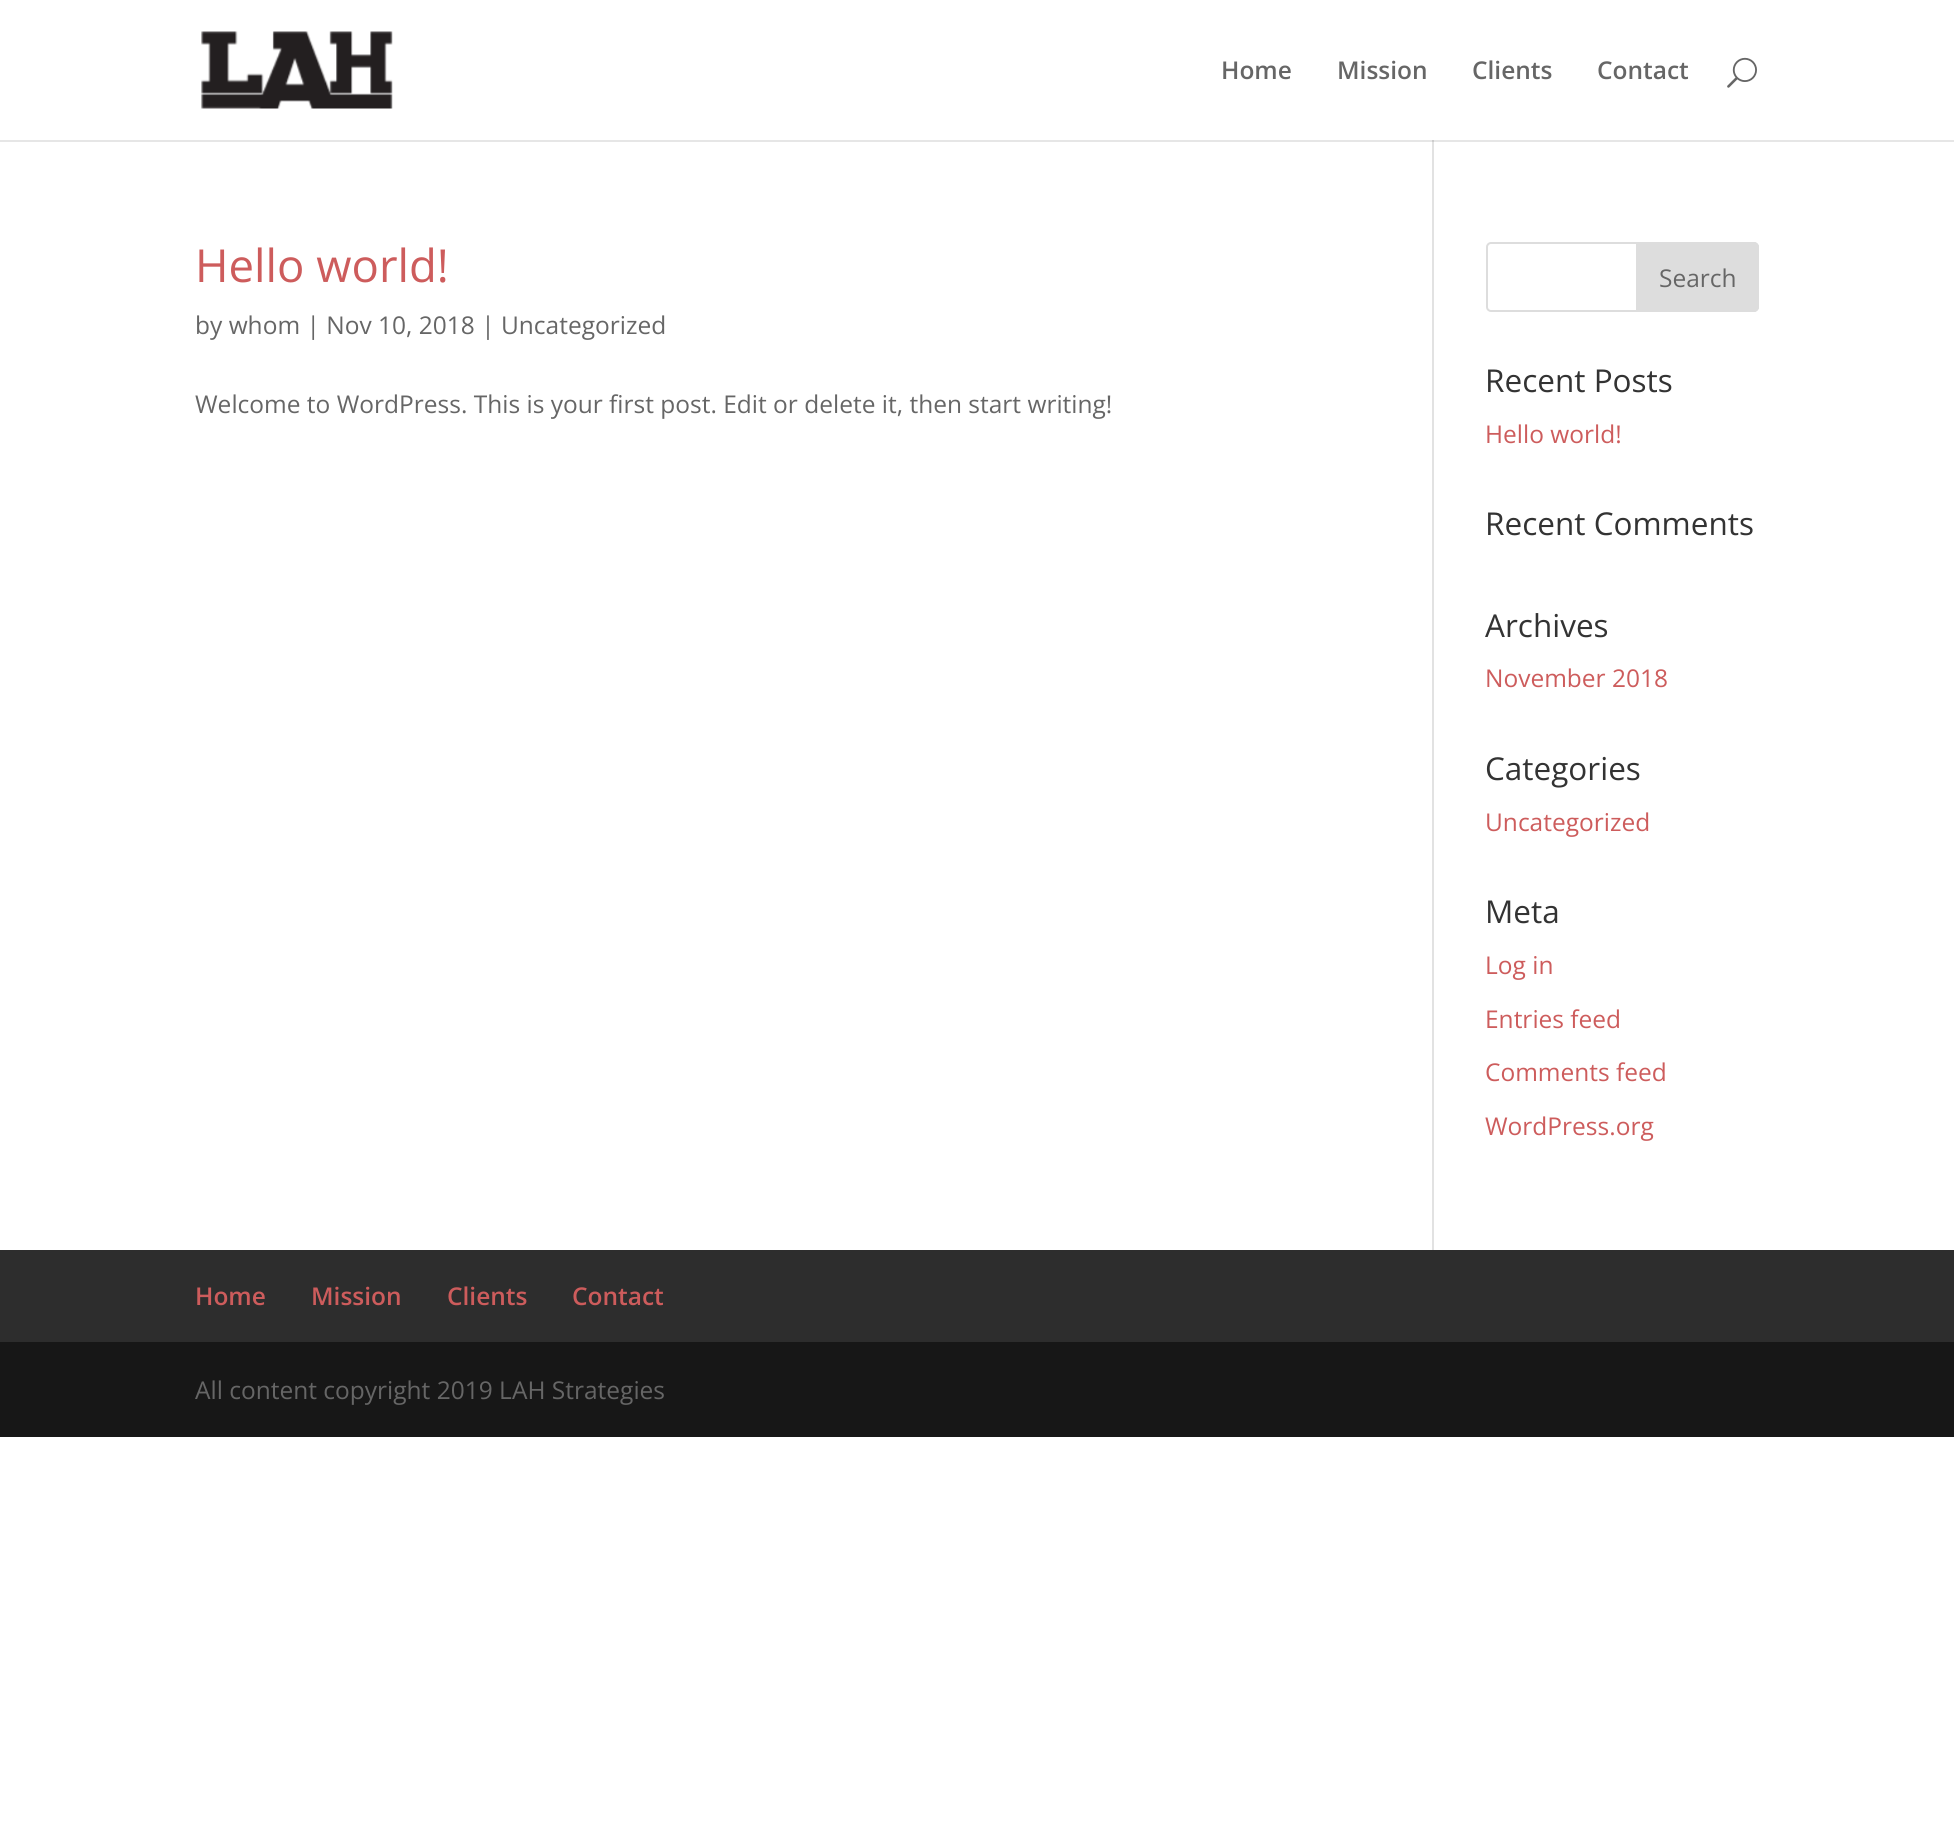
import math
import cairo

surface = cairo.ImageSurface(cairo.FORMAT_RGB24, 1954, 1836)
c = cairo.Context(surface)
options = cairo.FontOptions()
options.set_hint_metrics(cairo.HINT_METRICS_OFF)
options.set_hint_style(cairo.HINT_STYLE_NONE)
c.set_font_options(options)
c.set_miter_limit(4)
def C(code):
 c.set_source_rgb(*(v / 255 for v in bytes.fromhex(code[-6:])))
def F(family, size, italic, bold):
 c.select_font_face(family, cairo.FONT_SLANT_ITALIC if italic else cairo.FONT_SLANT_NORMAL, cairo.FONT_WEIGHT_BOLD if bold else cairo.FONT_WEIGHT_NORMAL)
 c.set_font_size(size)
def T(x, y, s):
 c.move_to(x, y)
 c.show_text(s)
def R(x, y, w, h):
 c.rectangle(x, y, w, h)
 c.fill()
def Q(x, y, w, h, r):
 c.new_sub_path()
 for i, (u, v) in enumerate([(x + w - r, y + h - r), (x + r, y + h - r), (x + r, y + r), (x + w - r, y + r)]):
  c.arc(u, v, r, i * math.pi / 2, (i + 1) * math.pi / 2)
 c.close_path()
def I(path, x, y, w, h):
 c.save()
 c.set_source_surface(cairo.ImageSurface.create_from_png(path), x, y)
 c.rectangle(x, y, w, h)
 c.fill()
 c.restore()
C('ffffff')
c.paint()
C('e2e2e2')
R(1432,140,2,1110)
c.set_source_rgba(0,0,0,0.1)
c.new_path()
c.move_to(0,140)
c.line_to(0,142)
c.line_to(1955,142)
c.line_to(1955,2)
c.line_to(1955,140)
c.close_path()
c.fill()
I('1.png',201,31,192,78)
F('Open Sans SemiBold',24.5,0,0)
C('666666')
T(1221,79,'Home')
T(1337,79,'Mission')
T(1472,79,'Clients')
T(1597,79,'Contact')
I('2.png',1727,57,30,31)
F('Open Sans',45.5,0,0)
C('cd5c5c')
T(195,282,'Hello world!')
F('Open Sans',24.5,0,0)
C('666666')
T(195,334,'by whom | Nov 10, 2018 | Uncategorized')
T(195,413,'Welcome to WordPress. This is your first post. Edit or delete it, then start writing!')
Q(1487,243,271,68,4)
C('dddddd')
c.stroke()
c.new_path()
c.move_to(1637,243)
c.line_to(1754,243)
c.curve_to(1756,243,1758,245,1758,247)
c.line_to(1758,307)
c.curve_to(1758,309,1756,311,1754,311)
c.line_to(1637,311)
c.close_path()
c.fill_preserve()
c.stroke()
C('666666')
T(1659,287,'Search')
F('Open Sans',31.5,0,0)
C('333333')
T(1485,392,'Recent Posts')
F('Open Sans',24.5,0,0)
C('cd5c5c')
T(1485,443,'Hello world!')
F('Open Sans',31.5,0,0)
C('333333')
T(1485,535,'Recent Comments')
T(1485,637,'Archives')
F('Open Sans',24.5,0,0)
C('cd5c5c')
T(1485,687,'November 2018')
F('Open Sans',31.5,0,0)
C('333333')
T(1485,780,'Categories')
F('Open Sans',24.5,0,0)
C('cd5c5c')
T(1485,831,'Uncategorized')
F('Open Sans',31.5,0,0)
C('333333')
T(1485,923,'Meta')
F('Open Sans',24.5,0,0)
C('cd5c5c')
T(1485,974,'Log in')
T(1485,1028,'Entries feed')
T(1485,1081,'Comments feed')
T(1485,1135,'WordPress.org')
C('2d2d2d')
R(0,1250,1954,92)
F('Open Sans SemiBold',24.5,0,0)
C('cd5c5c')
T(195,1305,'Home')
T(311,1305,'Mission')
T(447,1305,'Clients')
T(572,1305,'Contact')
C('171717')
R(0,1342,1954,95)
F('Open Sans',24.5,0,0)
C('666666')
T(195,1399,'All content copyright 2019 LAH Strategies')
surface.write_to_png('o.png')
